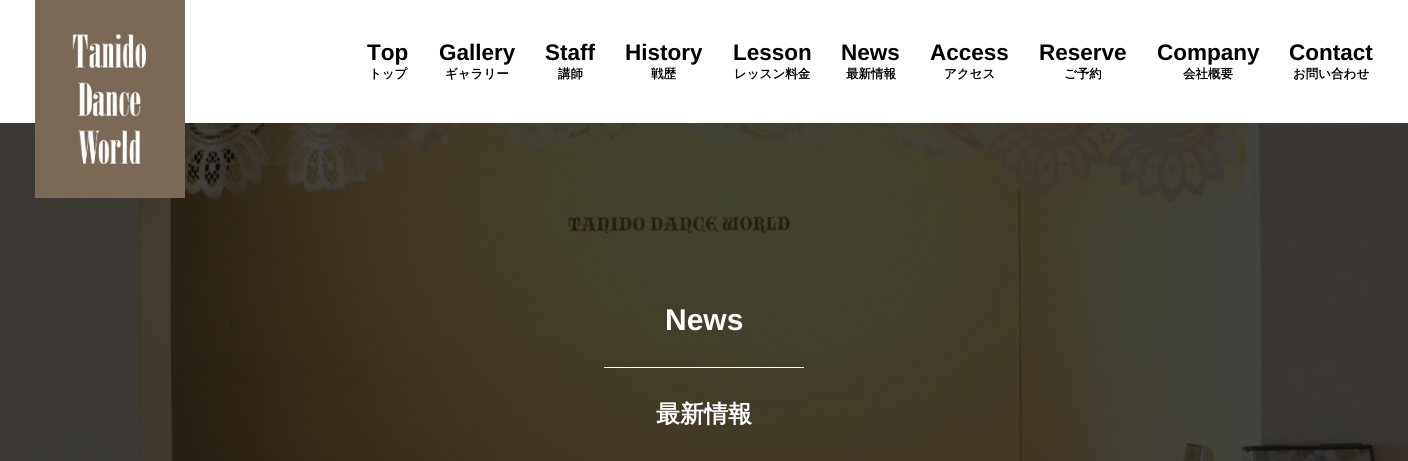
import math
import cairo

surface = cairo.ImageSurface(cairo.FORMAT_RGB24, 1408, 461)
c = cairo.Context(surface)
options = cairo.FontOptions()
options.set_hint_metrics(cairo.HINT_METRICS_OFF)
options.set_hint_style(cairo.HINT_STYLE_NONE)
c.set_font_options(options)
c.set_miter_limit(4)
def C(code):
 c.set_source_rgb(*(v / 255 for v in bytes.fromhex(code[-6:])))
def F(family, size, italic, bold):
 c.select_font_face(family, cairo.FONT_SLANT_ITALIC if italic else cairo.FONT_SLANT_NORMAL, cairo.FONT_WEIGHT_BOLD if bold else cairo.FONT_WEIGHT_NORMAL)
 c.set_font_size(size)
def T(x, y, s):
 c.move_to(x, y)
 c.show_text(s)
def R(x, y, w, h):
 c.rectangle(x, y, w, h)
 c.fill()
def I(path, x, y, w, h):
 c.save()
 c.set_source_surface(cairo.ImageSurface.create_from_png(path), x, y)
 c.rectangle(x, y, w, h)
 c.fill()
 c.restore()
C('ffffff')
c.paint()
I('2.png',0,123,1408,338)
C('7a6957')
R(35,0,150,198)
I('1.png',72,34,74,130)
F('Liberation Sans',22.5,0,1)
C('000000')
T(367,60,'Top')
F('WenQuanYi Zen Hei',12.5,0,1)
T(369,78,'トップ')
F('Liberation Sans',22.5,0,1)
T(439,60,'Gallery')
F('WenQuanYi Zen Hei',12.5,0,1)
T(445,78,'ギャラリー')
F('Liberation Sans',22.5,0,1)
T(545,60,'Staff')
F('WenQuanYi Zen Hei',12.5,0,1)
T(558,78,'講師')
F('Liberation Sans',22.5,0,1)
T(625,60,'History')
F('WenQuanYi Zen Hei',12.5,0,1)
T(651,78,'戦歴')
F('Liberation Sans',22.5,0,1)
T(733,60,'Lesson')
F('WenQuanYi Zen Hei',12.5,0,1)
T(734,78,'レッスン料金')
F('Liberation Sans',22.5,0,1)
T(841,60,'News')
F('WenQuanYi Zen Hei',12.5,0,1)
T(846,78,'最新情報')
F('Liberation Sans',22.5,0,1)
T(930,60,'Access')
F('WenQuanYi Zen Hei',12.5,0,1)
T(944,78,'アクセス')
F('Liberation Sans',22.5,0,1)
T(1039,60,'Reserve')
F('WenQuanYi Zen Hei',12.5,0,1)
T(1064,78,'ご予約')
F('Liberation Sans',22.5,0,1)
T(1157,60,'Company')
F('WenQuanYi Zen Hei',12.5,0,1)
T(1183,78,'会社概要')
F('Liberation Sans',22.5,0,1)
T(1289,60,'Contact')
F('WenQuanYi Zen Hei',12.5,0,1)
T(1293,78,'お問い合わせ')
F('Liberation Sans',30,0,1)
C('ffffff')
T(665,330,'News')
R(604,367,200,1)
F('WenQuanYi Zen Hei',24,0,1)
T(656,422,'最新情報')
surface.write_to_png('o.png')
